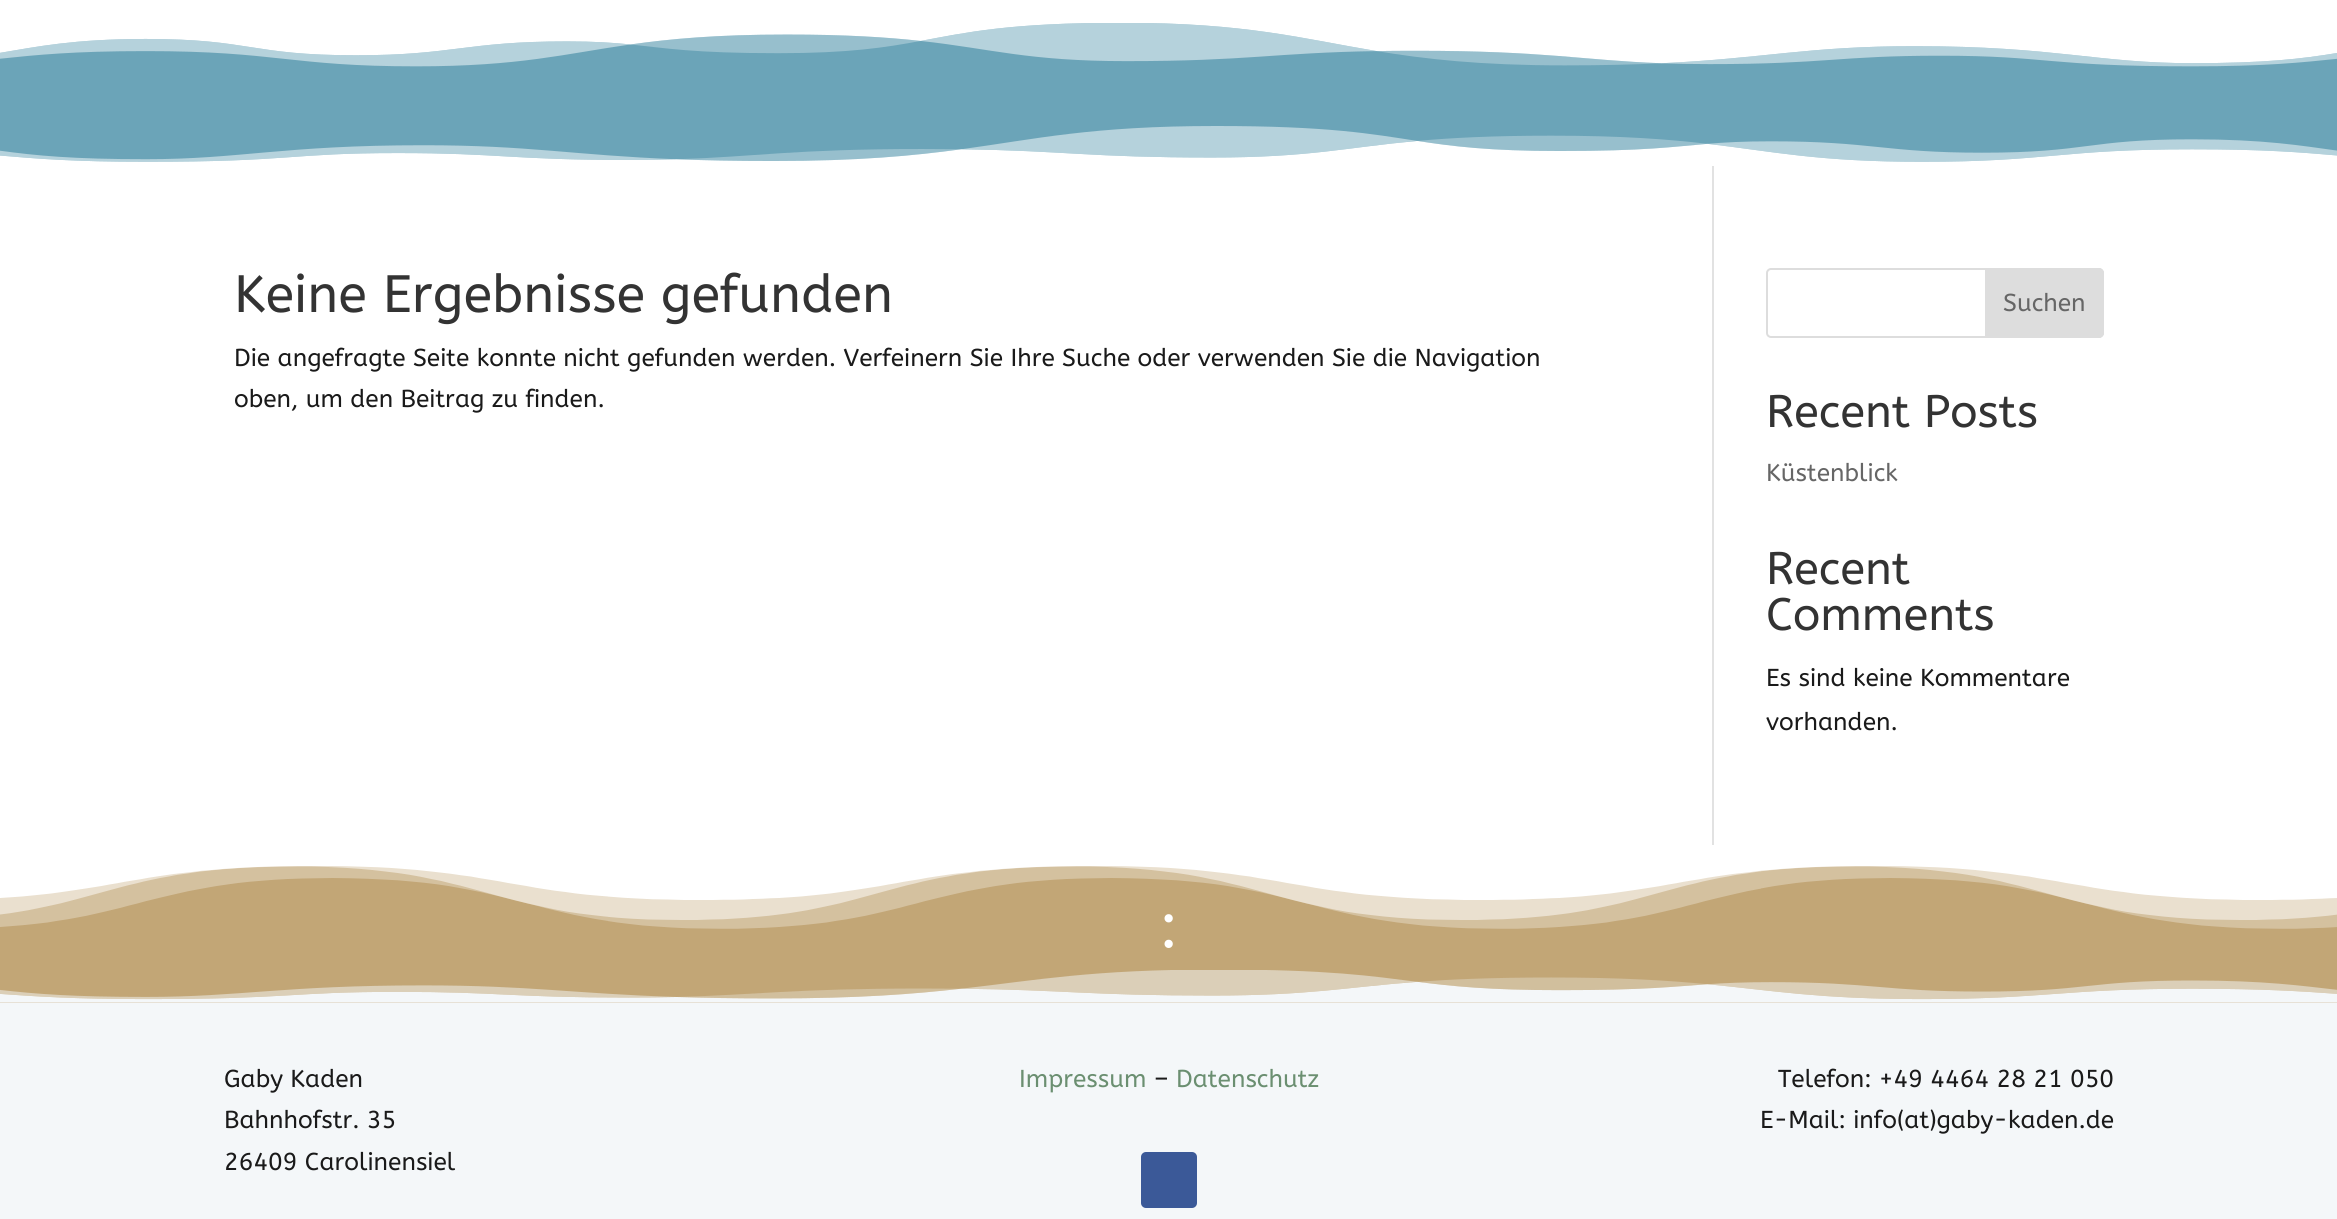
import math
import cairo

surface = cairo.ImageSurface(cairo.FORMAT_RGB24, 2337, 1219)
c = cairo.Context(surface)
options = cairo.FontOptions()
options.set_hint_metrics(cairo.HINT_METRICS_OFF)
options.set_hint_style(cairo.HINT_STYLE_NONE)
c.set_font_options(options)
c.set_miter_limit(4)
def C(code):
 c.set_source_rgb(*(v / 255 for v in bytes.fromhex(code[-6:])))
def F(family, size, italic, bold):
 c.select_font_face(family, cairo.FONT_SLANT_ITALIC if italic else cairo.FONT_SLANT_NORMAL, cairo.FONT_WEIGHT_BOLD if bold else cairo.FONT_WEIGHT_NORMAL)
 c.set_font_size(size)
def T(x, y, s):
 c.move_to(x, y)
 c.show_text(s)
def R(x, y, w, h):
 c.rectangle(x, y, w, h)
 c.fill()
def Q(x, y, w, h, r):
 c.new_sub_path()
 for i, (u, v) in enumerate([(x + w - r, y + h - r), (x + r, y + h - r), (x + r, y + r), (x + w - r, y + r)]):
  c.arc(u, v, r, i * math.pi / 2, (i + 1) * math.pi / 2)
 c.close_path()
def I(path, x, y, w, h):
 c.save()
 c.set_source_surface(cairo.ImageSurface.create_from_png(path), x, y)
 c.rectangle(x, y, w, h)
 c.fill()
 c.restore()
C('ffffff')
c.paint()
C('6ba4b8')
R(0,23,2337,139)
I('1.png',0,23,2337,44)
I('2.png',0,126,2337,40)
C('e2e2e2')
R(1712,166,2,679)
F('ABeeZee',52.5,0,0)
C('333333')
T(234,312,'Keine Ergebnisse gefunden')
F('ABeeZee',24.5,0,0)
C('1a1a1a')
T(234,366,'Die angefragte Seite konnte nicht gefunden werden. Verfeinern Sie Ihre Suche oder verwenden Sie die Navigation')
T(234,407,'oben, um den Beitrag zu finden.')
Q(1767,269,336,68,4)
C('dddddd')
c.stroke()
c.new_path()
c.move_to(1986,269)
c.line_to(2099,269)
c.curve_to(2101,269,2103,271,2103,273)
c.line_to(2103,333)
c.curve_to(2103,335,2101,337,2099,337)
c.line_to(1986,337)
c.close_path()
c.fill_preserve()
c.stroke()
C('666666')
T(2003,311,'Suchen')
F('ABeeZee',45.5,0,0)
C('333333')
T(1766,427,'Recent Posts')
F('ABeeZee',24.5,0,0)
C('666666')
T(1766,481,'Küstenblick')
F('ABeeZee',45.5,0,0)
C('333333')
T(1766,584,'Recent')
T(1766,630,'Comments')
F('ABeeZee',24.5,0,0)
C('1a1a1a')
T(1766,686,'Es sind keine Kommentare')
T(1766,730,'vorhanden.')
C('c2a676')
R(0,866,2337,137)
F('Liberation Serif',70,0,0)
C('ffffff')
T(1159,947,':')
I('3.png',0,845,2337,84)
I('4.png',0,970,2337,33)
C('f4f7f9')
R(0,1003,2337,216)
F('ABeeZee',24.5,0,0)
C('1a1a1a')
T(224,1087,'Gaby Kaden')
T(224,1128,'Bahnhofstr. 35')
T(224,1170,'26409 Carolinensiel')
C('6b8f71')
T(1019,1087,'Impressum')
C('1a1a1a')
T(1154,1087,'–')
C('6b8f71')
T(1176,1087,'Datenschutz')
C('3b5998')
Q(1141,1152,56,56,5)
c.fill()
C('1a1a1a')
T(1778,1087,'Telefon: +49 4464 28 21 050')
T(1760,1128,'E-Mail: info(at)gaby-kaden.de')
surface.write_to_png('o.png')
